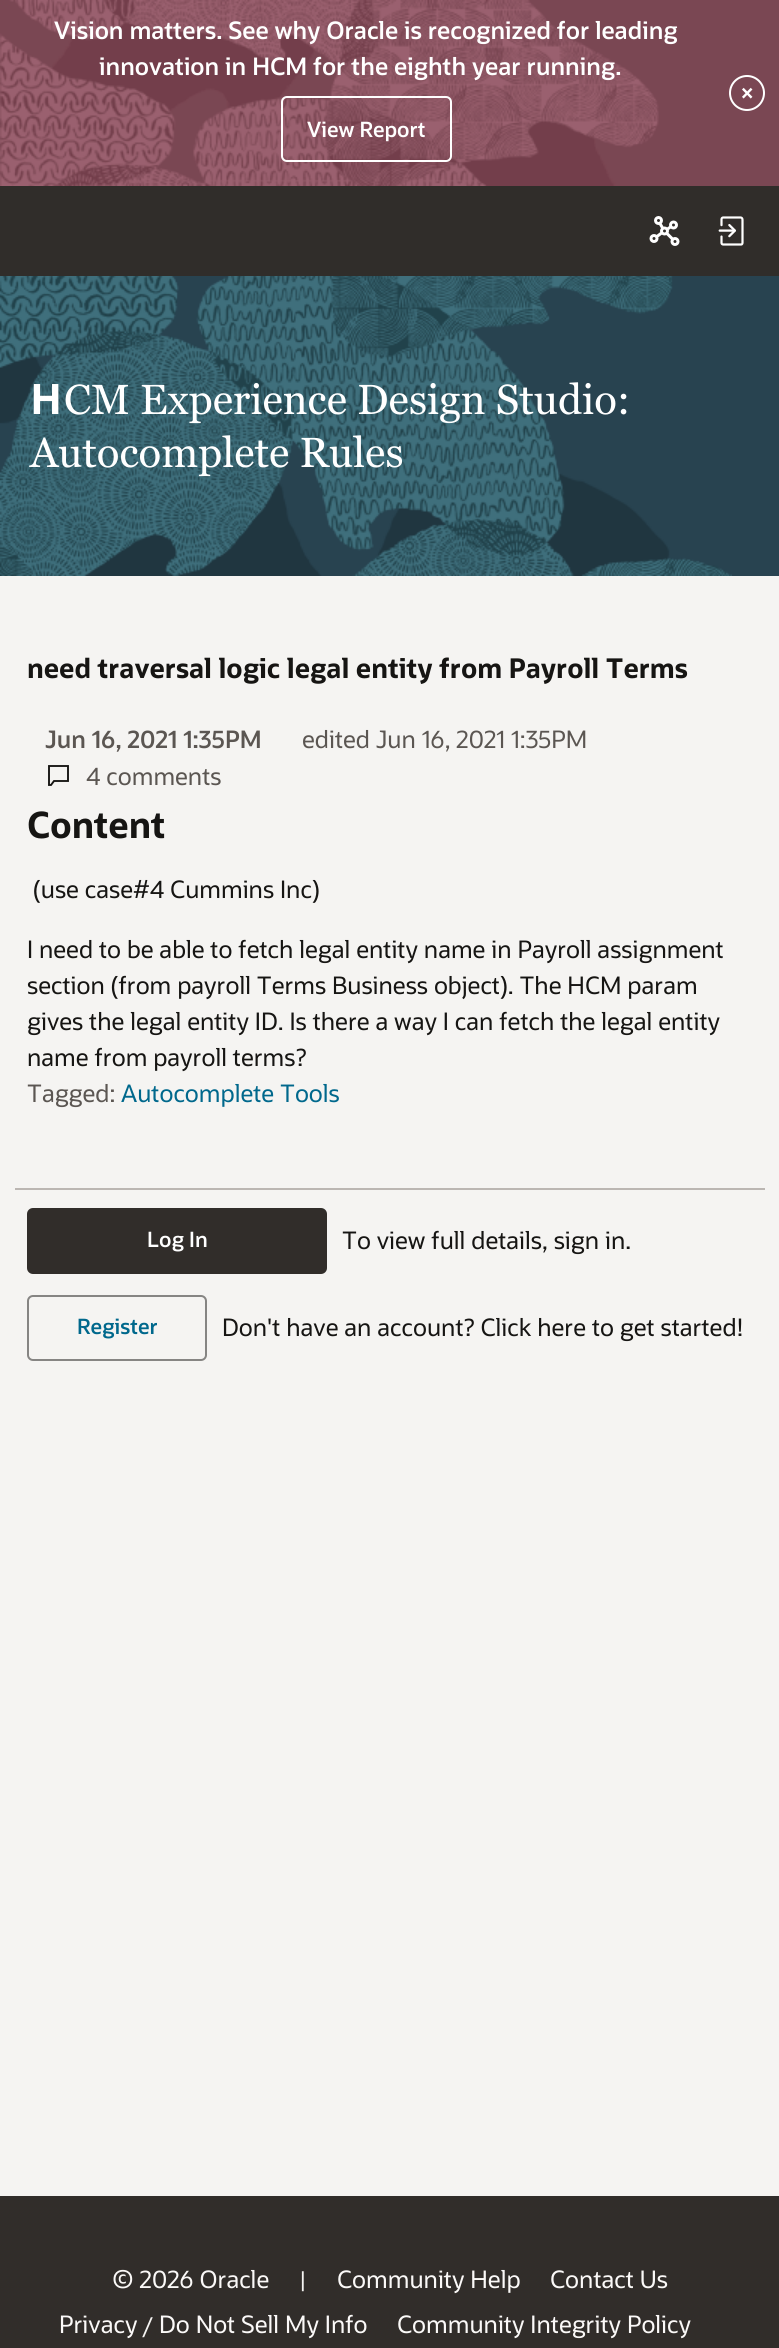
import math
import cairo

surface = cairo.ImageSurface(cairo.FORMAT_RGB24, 779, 2348)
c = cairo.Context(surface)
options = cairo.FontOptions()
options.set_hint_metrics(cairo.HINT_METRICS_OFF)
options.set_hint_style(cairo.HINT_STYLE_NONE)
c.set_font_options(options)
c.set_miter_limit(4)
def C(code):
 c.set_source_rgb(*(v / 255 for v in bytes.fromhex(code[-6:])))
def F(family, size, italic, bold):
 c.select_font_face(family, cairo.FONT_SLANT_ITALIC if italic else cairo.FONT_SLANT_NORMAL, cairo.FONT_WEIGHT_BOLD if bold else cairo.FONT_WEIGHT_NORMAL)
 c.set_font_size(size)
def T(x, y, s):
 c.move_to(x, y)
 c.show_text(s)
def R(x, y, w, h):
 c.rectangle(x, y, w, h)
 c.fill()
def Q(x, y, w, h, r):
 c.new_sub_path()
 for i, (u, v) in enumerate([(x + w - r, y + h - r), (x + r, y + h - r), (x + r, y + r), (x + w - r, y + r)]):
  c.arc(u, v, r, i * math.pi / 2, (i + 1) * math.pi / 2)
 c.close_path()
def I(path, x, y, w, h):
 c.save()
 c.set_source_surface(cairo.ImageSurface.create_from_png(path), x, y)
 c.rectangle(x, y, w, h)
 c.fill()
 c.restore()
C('f5f4f2')
c.paint()
C('7a4753')
R(659,0,120,186)
I('1.png',0,0,659,186)
F('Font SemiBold',24,0,0)
C('ffffff')
T(54,39,'Vision matters. See why Oracle is recognized for leading')
T(99,75,'innovation in HCM for the eighth year running.')
c.new_path()
c.arc(747,93,17,0,2 * math.pi)
c.stroke()
T(740,102,'×')
Q(282,97,169,64,5)
c.stroke()
F('Font SemiBold',21,0,0)
T(307,137,'View Report')
C('302d2a')
R(0,186,779,90)
I('2.png',649,216,31,30)
I('3.png',718,216,26,30)
C('284350')
R(732,276,47,300)
I('4.png',0,276,732,300)
F('Noto Sans',42,0,1)
C('ffffff')
T(30,414,'H')
F('Georgia',42,0,0)
T(64,414,'CM Experience Design Studio:')
T(30,467,'Autocomplete Rules')
F('Font',27,0,1)
C('161513')
T(27,678,'need traversal logic legal entity from Payroll Terms')
F('Font SemiBold',24,0,0)
C('5b5652')
T(45,748,'Jun 16, 2021 1:35PM')
F('Font',24,0,0)
T(302,748,'edited Jun 16, 2021 1:35PM')
c.new_path()
c.move_to(68,766)
c.line_to(49,766)
c.line_to(49,785)
c.line_to(51,785)
c.line_to(54,781)
c.line_to(68,781)
c.close_path()
C('161513')
c.set_line_width(1.9)
c.stroke()
C('5b5652')
T(86,785,'4 comments')
F('Font',36,0,1)
C('161513')
T(27,838,'Content')
F('Font',24,0,0)
T(33,898,'(use case#4 Cummins Inc)')
T(27,958,'I need to be able to fetch legal entity name in Payroll assignment')
T(27,994,'section (from payroll Terms Business object). The HCM param')
T(27,1030,'gives the legal entity ID. Is there a way I can fetch the legal entity')
T(27,1066,'name from payroll terms?')
C('5b5652')
T(27,1102,'Tagged:')
C('00688c')
T(121,1102,'Autocomplete Tools')
C('bbb6b2')
R(15,1188,750,2)
C('312d2a')
Q(28,1209,298,64,5)
c.fill_preserve()
c.set_line_width(2)
c.stroke()
F('Font SemiBold',21,0,0)
C('ffffff')
T(147,1247,'Log In')
F('Font',24,0,0)
C('161513')
T(342,1249,'To view full details, sign in.')
Q(28,1296,178,64,5)
C('868583')
c.stroke()
F('Font SemiBold',21,0,0)
C('00688c')
T(77,1334,'Register')
F('Font',24,0,0)
C('161513')
T(222,1336,'Don\'t have an account? Click here to get started!')
C('312d2a')
R(0,2196,779,152)
C('fbf9f8')
T(112,2288,'© 2026 Oracle')
F('Font',21,0,0)
C('f5f4f2')
T(299,2287,'|')
F('Font',24,0,0)
C('fbf9f8')
T(337,2288,'Community Help')
T(550,2288,'Contact Us')
T(59,2333,'Privacy')
F('Font',21,0,0)
C('f5f4f2')
T(142,2333,'/')
F('Font',24,0,0)
C('fbf9f8')
T(159,2333,'Do Not Sell My Info')
T(397,2333,'Community Integrity Policy')
surface.write_to_png('o.png')
